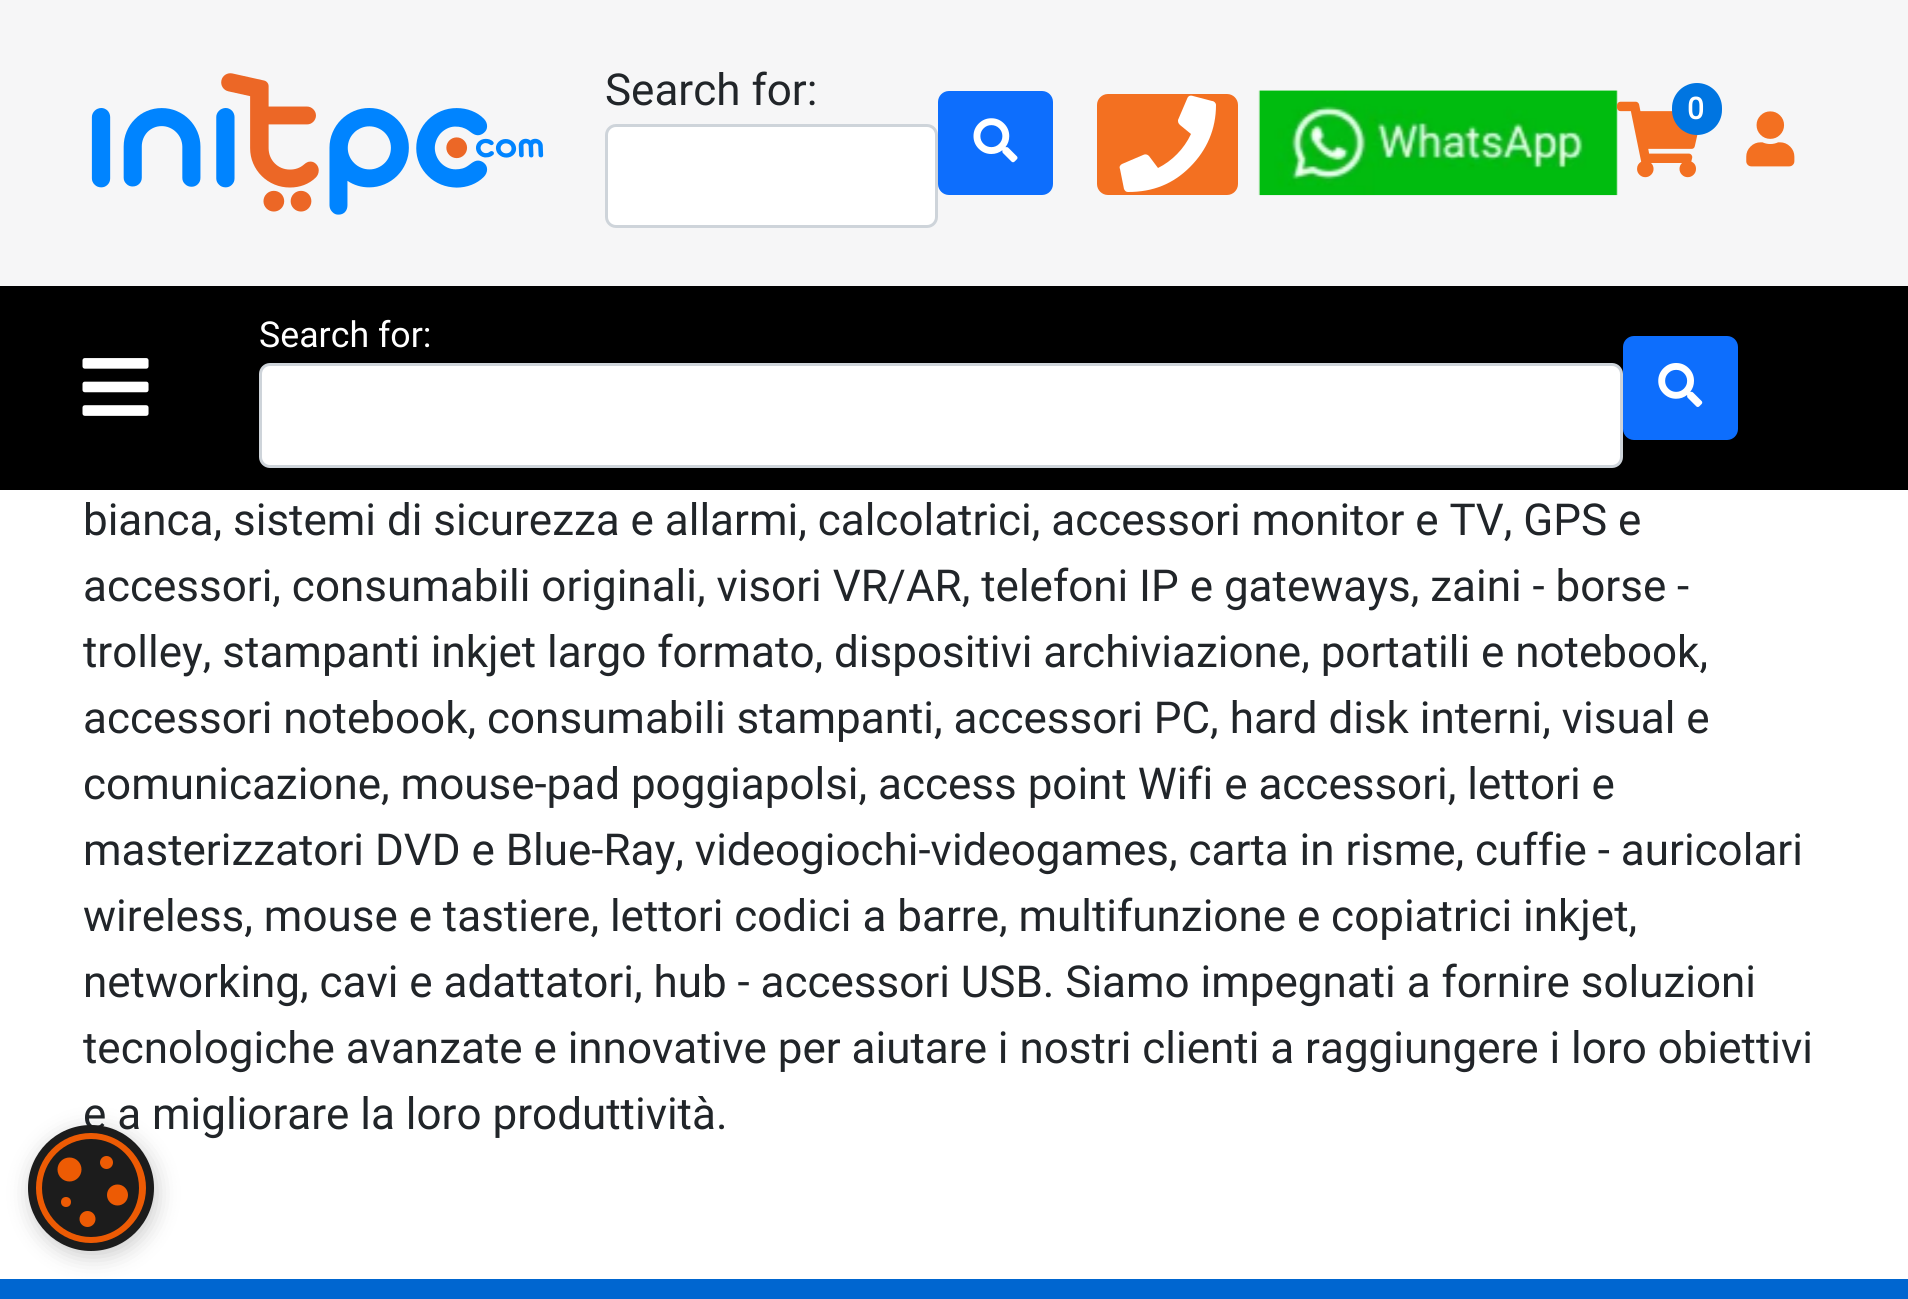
import math
import cairo

surface = cairo.ImageSurface(cairo.FORMAT_RGB24, 1908, 1299)
c = cairo.Context(surface)
options = cairo.FontOptions()
options.set_hint_metrics(cairo.HINT_METRICS_OFF)
options.set_hint_style(cairo.HINT_STYLE_NONE)
c.set_font_options(options)
c.set_miter_limit(4)
def C(code):
 c.set_source_rgb(*(v / 255 for v in bytes.fromhex(code[-6:])))
def F(family, size, italic, bold):
 c.select_font_face(family, cairo.FONT_SLANT_ITALIC if italic else cairo.FONT_SLANT_NORMAL, cairo.FONT_WEIGHT_BOLD if bold else cairo.FONT_WEIGHT_NORMAL)
 c.set_font_size(size)
def T(x, y, s):
 c.move_to(x, y)
 c.show_text(s)
def R(x, y, w, h):
 c.rectangle(x, y, w, h)
 c.fill()
def Q(x, y, w, h, r):
 c.new_sub_path()
 for i, (u, v) in enumerate([(x + w - r, y + h - r), (x + r, y + h - r), (x + r, y + r), (x + w - r, y + r)]):
  c.arc(u, v, r, i * math.pi / 2, (i + 1) * math.pi / 2)
 c.close_path()
def S(x, y, w, h, r, blur, alpha):
 c.push_group_with_content(cairo.CONTENT_ALPHA)
 c.set_operator(cairo.OPERATOR_SOURCE)
 for i in range(15, -16, -2):
  e = blur * i / 6
  if min(w, h) + 2 * e > 0:
   c.set_source_rgba(0, 0, 0, alpha * math.erfc((i - 1) / 8.5) / 2)
   Q(x - e, y - e, w + 2 * e, h + 2 * e, max(0, min(r + e + blur * .6, min(w, h) / 2 + e)))
   c.fill()
 c.mask(c.pop_group())
def I(path, x, y, w, h):
 c.save()
 c.set_source_surface(cairo.ImageSurface.create_from_png(path), x, y)
 c.rectangle(x, y, w, h)
 c.fill()
 c.restore()
C('ffffff')
c.paint()
C('f6f6f7')
R(0,0,1908,286)
I('1.png',91,73,453,142)
F('Roboto',44,0,0)
C('212529')
T(605,105,'Search for:')
C('ffffff')
Q(606.5,125.5,330,101,9.5)
c.fill_preserve()
C('ced4da')
c.set_line_width(3)
c.stroke()
C('0d6efd')
Q(939.5,92.5,112,101,9.5)
c.fill_preserve()
c.stroke()
I('2.png',973,118,45,45)
C('f37021')
Q(1097,94,141,101,11)
c.fill()
C('ffffff')
c.new_path()
c.move_to(1212,101)
c.curve_to(1214,101,1216,103,1216,105)
c.curve_to(1216,129,1207,150,1190,167)
c.curve_to(1173,184,1153,192,1128,192)
c.curve_to(1126,192,1125,191,1124,189)
c.line_to(1120,169)
c.curve_to(1119,167,1120,165,1122,164)
c.line_to(1143,155)
c.curve_to(1145,154,1147,154,1149,156)
c.line_to(1158,168)
c.curve_to(1172,161,1184,149,1191,134)
c.line_to(1180,125)
c.curve_to(1178,123,1178,122,1178,120)
c.line_to(1187,99)
c.curve_to(1188,96,1190,95,1193,96)
c.close_path()
c.fill()
I('3.png',1258,90,360,106)
I('4.png',1617,101,81,77)
C('0075e1')
Q(1672,83,50,52,25)
c.fill()
F('Roboto',30,0,1)
C('ffffff')
T(1687,119,'0')
I('5.png',1746,111,49,56)
C('000000')
R(0,286,1908,204)
F('Roboto',35.75,0,0)
C('ffffff')
T(259,347,'Search for:')
Q(260.5,364.5,1361,102,9.5)
c.fill_preserve()
C('ced4da')
c.stroke()
C('0d6efd')
Q(1624.5,337.5,112,101,9.5)
c.fill_preserve()
c.stroke()
I('6.png',1658,363,45,44)
I('7.png',82,358,67,58)
F('Roboto',44,0,0)
C('212529')
T(83,535,'bianca, sistemi di sicurezza e allarmi, calcolatrici, accessori monitor e TV, GPS e')
T(83,601,'accessori, consumabili originali, visori VR/AR, telefoni IP e gateways, zaini - borse -')
T(83,667,'trolley, stampanti inkjet largo formato, dispositivi archiviazione, portatili e notebook,')
T(83,733,'accessori notebook, consumabili stampanti, accessori PC, hard disk interni, visual e')
T(83,799,'comunicazione, mouse-pad poggiapolsi, access point Wifi e accessori, lettori e')
T(83,865,'masterizzatori DVD e Blue-Ray, videogiochi-videogames, carta in risme, cuffie - auricolari')
T(83,931,'wireless, mouse e tastiere, lettori codici a barre, multifunzione e copiatrici inkjet,')
T(83,997,'networking, cavi e adattatori, hub - accessori USB. Siamo impegnati a fornire soluzioni')
T(83,1063,'tecnologiche avanzate e innovative per aiutare i nostri clienti a raggiungere i loro obiettivi')
T(83,1129,'e a migliorare la loro produttività.')
C('0066d0')
R(0,1279,1908,20)
C('000000')
S(30,1130,127,127,63.5,11,.2)
C('1c1c1c')
c.arc(91,1188,63,0,2 * math.pi)
c.fill()
C('ed5b04')
c.new_path()
c.move_to(91,1133)
c.curve_to(60,1133,36,1158,36,1188)
c.curve_to(36,1218,60,1243,91,1243)
c.curve_to(121,1243,146,1218,146,1188)
c.curve_to(146,1158,121,1133,91,1133)
c.close_path()
c.move_to(91,1237)
c.curve_to(64,1237,42,1215,42,1188)
c.curve_to(42,1161,64,1139,91,1139)
c.curve_to(118,1139,139,1161,139,1188)
c.curve_to(139,1215,118,1237,91,1237)
c.close_path()
c.fill()
c.arc(69.5,1169.5,12,0,2 * math.pi)
c.fill()
c.arc(106.5,1162.5,6.5,0,2 * math.pi)
c.fill()
c.arc(66,1202,5,0,2 * math.pi)
c.fill()
c.arc(117.5,1195,10.5,0,2 * math.pi)
c.fill()
c.arc(87.5,1219,8,0,2 * math.pi)
c.fill()
surface.write_to_png('o.png')
